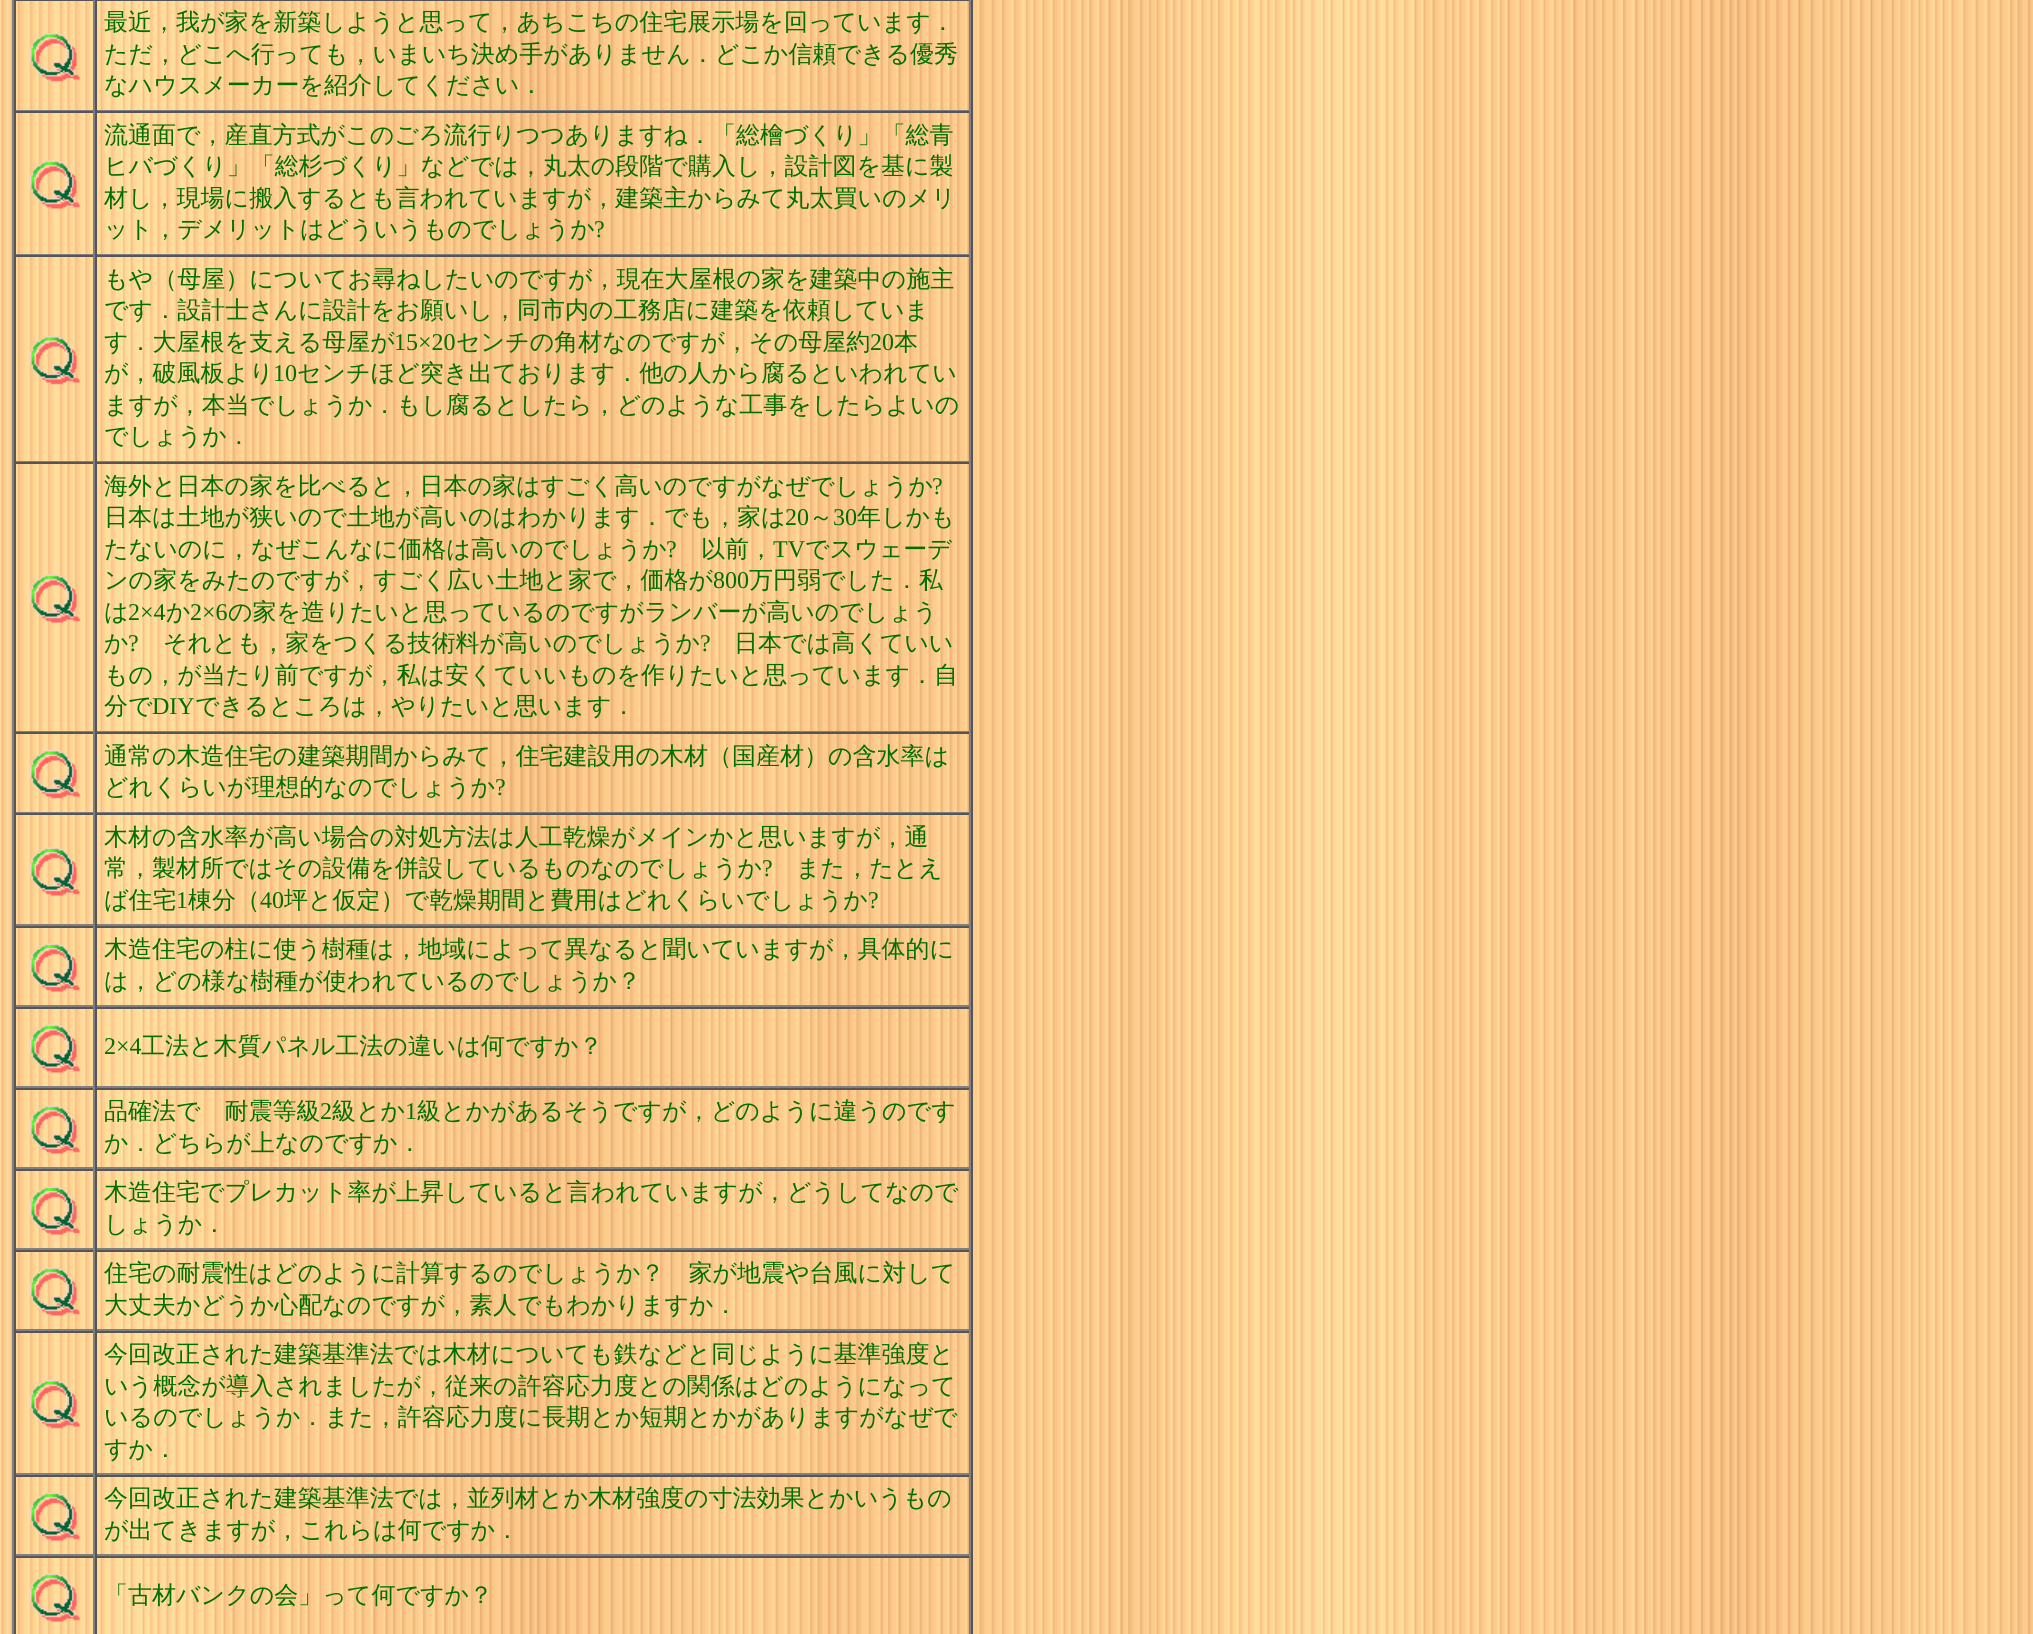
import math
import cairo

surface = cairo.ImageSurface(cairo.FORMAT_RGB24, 2033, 1634)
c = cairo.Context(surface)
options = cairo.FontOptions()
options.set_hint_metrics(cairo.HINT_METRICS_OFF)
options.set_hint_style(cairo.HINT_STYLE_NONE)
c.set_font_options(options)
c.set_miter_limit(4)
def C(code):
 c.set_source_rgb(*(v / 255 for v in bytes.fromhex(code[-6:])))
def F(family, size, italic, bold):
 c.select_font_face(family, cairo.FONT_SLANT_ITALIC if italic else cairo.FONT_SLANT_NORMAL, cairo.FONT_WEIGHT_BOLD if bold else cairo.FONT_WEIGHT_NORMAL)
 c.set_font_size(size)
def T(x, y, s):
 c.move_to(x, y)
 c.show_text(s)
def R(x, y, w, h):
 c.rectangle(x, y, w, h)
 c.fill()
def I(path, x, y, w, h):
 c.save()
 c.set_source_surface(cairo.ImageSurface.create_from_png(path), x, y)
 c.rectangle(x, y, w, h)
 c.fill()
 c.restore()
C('ffffff')
c.paint()
I('1.png',0,0,2033,1634)
C('555555')
R(971,0,2,1634)
C('808080')
R(12,0,2,1634)
C('555555')
R(14,0,957,1)
C('808080')
R(93,0,2,111)
R(14,110,81,1)
C('555555')
R(14,0,2,111)
I('2.png',29,32,51,50)
C('808080')
R(969,0,2,111)
R(95,110,876,1)
C('555555')
R(95,0,2,111)
F('WenQuanYi Zen Hei Medium',24,0,0)
C('006f00')
T(104,30,'最近，我が家を新築しようと思って，あちこちの住宅展示場を回っています．')
T(104,62,'ただ，どこへ行っても，いまいち決め手がありません．どこか信頼できる優秀')
T(104,93,'なハウスメーカーを紹介してください．')
C('555555')
R(14,111,957,2)
C('808080')
R(93,111,2,144)
R(14,254,81,1)
C('555555')
R(14,111,2,144)
I('3.png',29,160,51,49)
C('808080')
R(969,111,2,144)
R(95,254,876,1)
C('555555')
R(95,111,2,144)
C('006f00')
T(104,143,'流通面で，産直方式がこのごろ流行りつつありますね．「総檜づくり」「総青')
T(104,174,'ヒバづくり」「総杉づくり」などでは，丸太の段階で購入し，設計図を基に製')
T(104,206,'材し，現場に搬入するとも言われていますが，建築主からみて丸太買いのメリ')
T(104,237,'ット，デメリットはどういうものでしょうか')
F('Liberation Serif',24,0,0)
T(594,237,'?')
C('555555')
R(14,255,957,2)
C('808080')
R(93,255,2,207)
R(14,461,81,1)
C('555555')
R(14,255,2,207)
I('4.png',29,335,51,50)
C('808080')
R(969,255,2,207)
R(95,461,876,1)
C('555555')
R(95,255,2,207)
F('WenQuanYi Zen Hei Medium',24,0,0)
C('006f00')
T(104,287,'もや（母屋）についてお尋ねしたいのですが，現在大屋根の家を建築中の施主')
T(104,318,'です．設計士さんに設計をお願いし，同市内の工務店に建築を依頼していま')
T(104,350,'す．大屋根を支える母屋が')
F('Liberation Serif',24,0,0)
T(394,350,'15×20')
F('WenQuanYi Zen Hei Medium',24,0,0)
T(456,350,'センチの角材なのですが，その母屋約')
F('Liberation Serif',24,0,0)
T(870,350,'20')
F('WenQuanYi Zen Hei Medium',24,0,0)
T(894,350,'本')
T(104,381,'が，破風板より')
F('Liberation Serif',24,0,0)
T(273,381,'10')
F('WenQuanYi Zen Hei Medium',24,0,0)
T(297,381,'センチほど突き出ております．他の人から腐るといわれてい')
T(104,413,'ますが，本当でしょうか．もし腐るとしたら，どのような工事をしたらよいの')
T(104,444,'でしょうか．')
C('555555')
R(14,462,957,2)
C('808080')
R(93,462,2,270)
R(14,731,81,1)
C('555555')
R(14,462,2,270)
I('5.png',29,574,51,49)
C('808080')
R(969,462,2,270)
R(95,731,876,1)
C('555555')
R(95,462,2,270)
C('006f00')
T(104,494,'海外と日本の家を比べると，日本の家はすごく高いのですがなぜでしょうか')
F('Liberation Serif',24,0,0)
T(932,494,'?')
F('WenQuanYi Zen Hei Medium',24,0,0)
T(104,525,'日本は土地が狭いので土地が高いのはわかります．でも，家は')
F('Liberation Serif',24,0,0)
T(785,525,'20')
F('WenQuanYi Zen Hei Medium',24,0,0)
T(809,525,'～')
F('Liberation Serif',24,0,0)
T(833,525,'30')
F('WenQuanYi Zen Hei Medium',24,0,0)
T(857,525,'年しかも')
T(104,557,'たないのに，なぜこんなに価格は高いのでしょうか')
F('Liberation Serif',24,0,0)
T(666,557,'?')
F('WenQuanYi Zen Hei Medium',24,0,0)
T(701,557,'以前，')
F('Liberation Serif',24,0,0)
T(773,557,'TV')
F('WenQuanYi Zen Hei Medium',24,0,0)
T(805,557,'でスウェーデ')
T(104,588,'ンの家をみたのですが，すごく広い土地と家で，価格が')
F('Liberation Serif',24,0,0)
T(713,588,'800')
F('WenQuanYi Zen Hei Medium',24,0,0)
T(749,588,'万円弱でした．私')
T(104,620,'は')
F('Liberation Serif',24,0,0)
T(128,620,'2×4')
F('WenQuanYi Zen Hei Medium',24,0,0)
T(166,620,'か')
F('Liberation Serif',24,0,0)
T(190,620,'2×6')
F('WenQuanYi Zen Hei Medium',24,0,0)
T(228,620,'の家を造りたいと思っているのですがランバーが高いのでしょう')
T(104,651,'か')
F('Liberation Serif',24,0,0)
T(128,651,'?')
F('WenQuanYi Zen Hei Medium',24,0,0)
T(163,651,'それとも，家をつくる技術料が高いのでしょうか')
F('Liberation Serif',24,0,0)
T(700,651,'?')
F('WenQuanYi Zen Hei Medium',24,0,0)
T(734,651,'日本では高くていい')
T(104,683,'もの，が当たり前ですが，私は安くていいものを作りたいと思っています．自')
T(104,714,'分で')
F('Liberation Serif',24,0,0)
T(152,714,'DIY')
F('WenQuanYi Zen Hei Medium',24,0,0)
T(195,714,'できるところは，やりたいと思います．')
C('555555')
R(14,732,957,2)
C('808080')
R(93,732,2,81)
R(14,812,81,1)
C('555555')
R(14,732,2,81)
I('6.png',29,749,51,50)
C('808080')
R(969,732,2,81)
R(95,812,876,1)
C('555555')
R(95,732,2,81)
C('006f00')
T(104,764,'通常の木造住宅の建築期間からみて，住宅建設用の木材（国産材）の含水率は')
T(104,795,'どれくらいが理想的なのでしょうか')
F('Liberation Serif',24,0,0)
T(495,795,'?')
C('555555')
R(14,813,957,2)
C('808080')
R(93,813,2,113)
R(14,924,81,2)
C('555555')
R(14,813,2,113)
I('7.png',29,847,51,49)
C('808080')
R(969,813,2,113)
R(95,924,876,2)
C('555555')
R(95,813,2,113)
F('WenQuanYi Zen Hei Medium',24,0,0)
C('006f00')
T(104,845,'木材の含水率が高い場合の対処方法は人工乾燥がメインかと思いますが，通')
T(104,876,'常，製材所ではその設備を併設しているものなのでしょうか')
F('Liberation Serif',24,0,0)
T(762,876,'?')
F('WenQuanYi Zen Hei Medium',24,0,0)
T(796,876,'また，たとえ')
T(104,908,'ば住宅')
F('Liberation Serif',24,0,0)
T(176,908,'1')
F('WenQuanYi Zen Hei Medium',24,0,0)
T(188,908,'棟分（')
F('Liberation Serif',24,0,0)
T(260,908,'40')
F('WenQuanYi Zen Hei Medium',24,0,0)
T(284,908,'坪と仮定）で乾燥期間と費用はどれくらいでしょうか')
F('Liberation Serif',24,0,0)
T(868,908,'?')
C('555555')
R(14,926,957,2)
C('808080')
R(93,926,2,81)
R(14,1005,81,2)
C('555555')
R(14,926,2,81)
I('7.png',29,943,51,49)
C('808080')
R(969,926,2,81)
R(95,1005,876,2)
C('555555')
R(95,926,2,81)
F('WenQuanYi Zen Hei Medium',24,0,0)
C('006f00')
T(104,957,'木造住宅の柱に使う樹種は，地域によって異なると聞いていますが，具体的に')
T(104,989,'は，どの様な樹種が使われているのでしょうか？')
C('555555')
R(14,1007,957,2)
C('808080')
R(93,1007,2,81)
R(14,1086,81,2)
C('555555')
R(14,1007,2,81)
I('7.png',29,1024,51,49)
C('808080')
R(969,1007,2,81)
R(95,1086,876,2)
C('555555')
R(95,1007,2,81)
F('Liberation Serif',24,0,0)
C('006f00')
T(104,1054,'2×4')
F('WenQuanYi Zen Hei Medium',24,0,0)
T(141,1054,'工法と木質パネル工法の違いは何ですか？')
C('555555')
R(14,1088,957,2)
C('808080')
R(93,1088,2,81)
R(14,1167,81,2)
C('555555')
R(14,1088,2,81)
I('7.png',29,1105,51,49)
C('808080')
R(969,1088,2,81)
R(95,1167,876,2)
C('555555')
R(95,1088,2,81)
C('006f00')
T(104,1119,'品確法で　耐震等級')
F('Liberation Serif',24,0,0)
T(320,1119,'2')
F('WenQuanYi Zen Hei Medium',24,0,0)
T(332,1119,'級とか')
F('Liberation Serif',24,0,0)
T(405,1119,'1')
F('WenQuanYi Zen Hei Medium',24,0,0)
T(417,1119,'級とかがあるそうですが，どのように違うのです')
T(104,1151,'か．どちらが上なのですか．')
C('555555')
R(14,1169,957,2)
C('808080')
R(93,1169,2,81)
R(14,1248,81,2)
C('555555')
R(14,1169,2,81)
I('8.png',29,1186,51,49)
C('808080')
R(969,1169,2,81)
R(95,1248,876,2)
C('555555')
R(95,1169,2,81)
C('006f00')
T(104,1200,'木造住宅でプレカット率が上昇していると言われていますが，どうしてなので')
T(104,1232,'しょうか．')
C('555555')
R(14,1250,957,2)
C('808080')
R(93,1250,2,81)
R(14,1329,81,2)
C('555555')
R(14,1250,2,81)
I('9.png',29,1267,51,49)
C('808080')
R(969,1250,2,81)
R(95,1329,876,2)
C('555555')
R(95,1250,2,81)
C('006f00')
T(104,1281,'住宅の耐震性はどのように計算するのでしょうか？　家が地震や台風に対して')
T(104,1313,'大丈夫かどうか心配なのですが，素人でもわかりますか．')
C('555555')
R(14,1331,957,2)
C('808080')
R(93,1331,2,144)
R(14,1473,81,2)
C('555555')
R(14,1331,2,144)
I('10.png',29,1379,51,50)
C('808080')
R(969,1331,2,144)
R(95,1473,876,2)
C('555555')
R(95,1331,2,144)
C('006f00')
T(104,1362,'今回改正された建築基準法では木材についても鉄などと同じように基準強度と')
T(104,1394,'いう概念が導入されましたが，従来の許容応力度との関係はどのようになって')
T(104,1425,'いるのでしょうか．また，許容応力度に長期とか短期とかがありますがなぜで')
T(104,1457,'すか．')
C('555555')
R(14,1475,957,2)
C('808080')
R(93,1475,2,81)
R(14,1554,81,2)
C('555555')
R(14,1475,2,81)
I('7.png',29,1492,51,49)
C('808080')
R(969,1475,2,81)
R(95,1554,876,2)
C('555555')
R(95,1475,2,81)
C('006f00')
T(104,1506,'今回改正された建築基準法では，並列材とか木材強度の寸法効果とかいうもの')
T(104,1538,'が出てきますが，これらは何ですか．')
C('555555')
R(14,1556,957,2)
C('808080')
R(93,1556,2,78)
C('555555')
R(14,1556,2,78)
I('7.png',29,1573,51,49)
C('808080')
R(969,1556,2,78)
C('555555')
R(95,1556,2,78)
C('006f00')
T(104,1603,'「古材バンクの会」って何ですか？')
surface.write_to_png('o.png')
